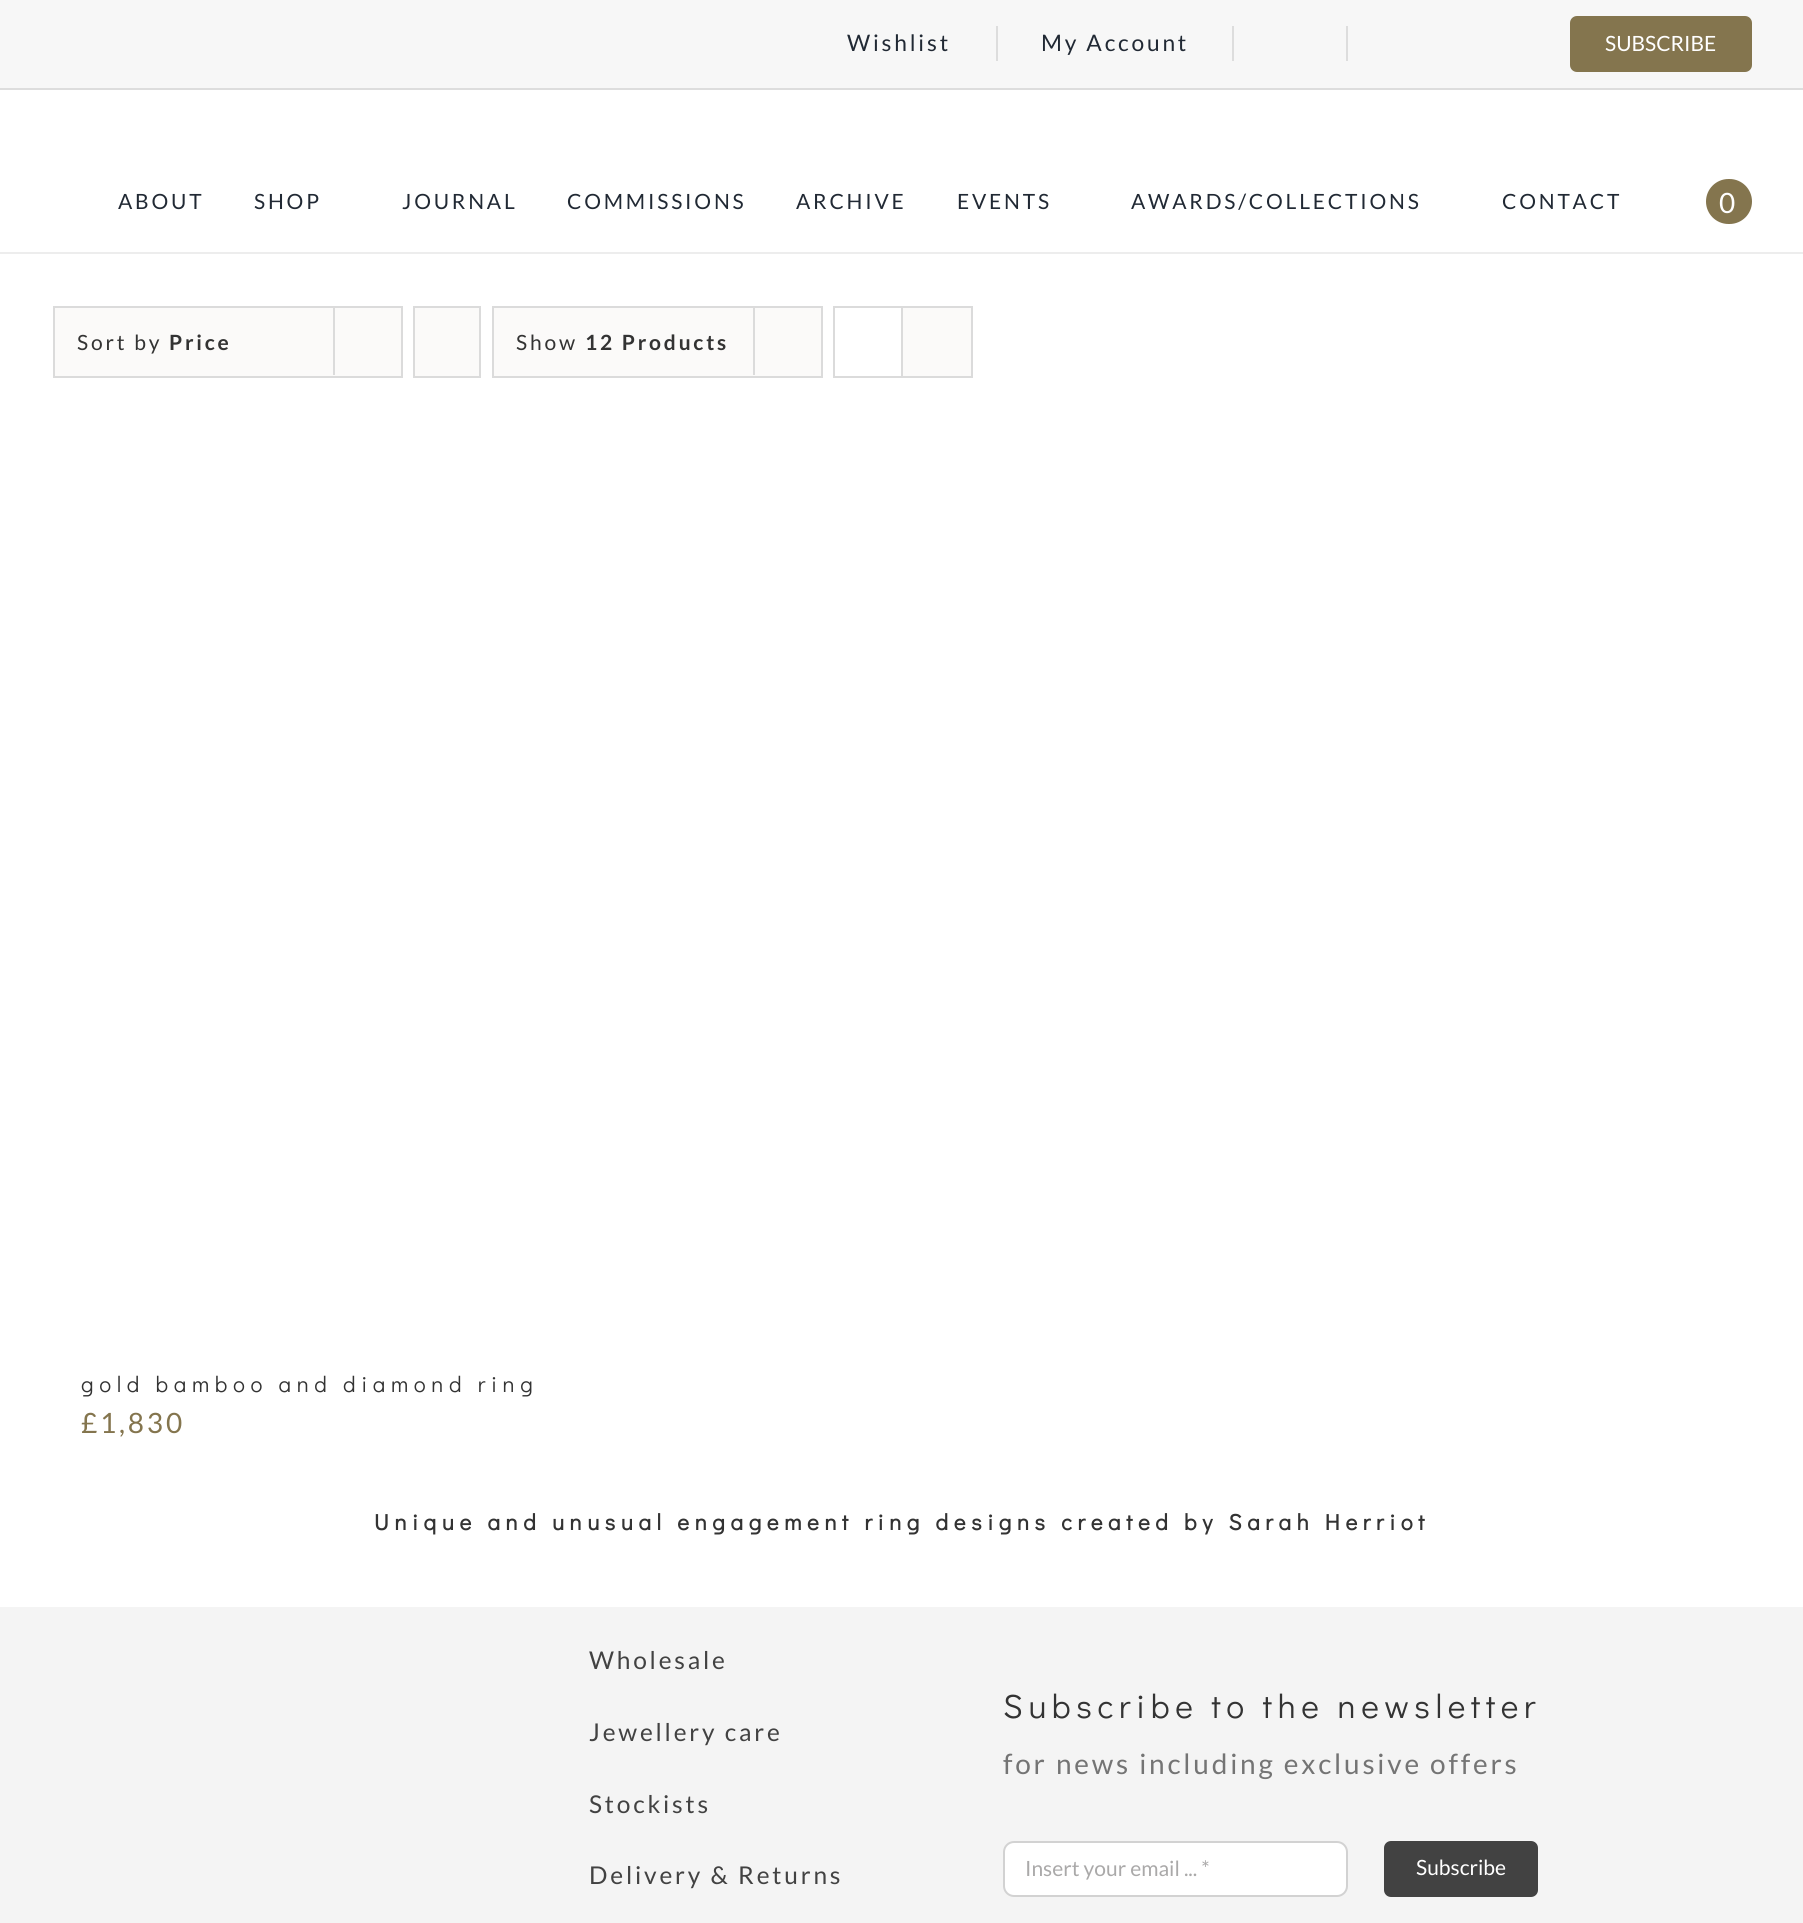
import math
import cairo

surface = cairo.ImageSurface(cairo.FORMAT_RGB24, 1803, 1923)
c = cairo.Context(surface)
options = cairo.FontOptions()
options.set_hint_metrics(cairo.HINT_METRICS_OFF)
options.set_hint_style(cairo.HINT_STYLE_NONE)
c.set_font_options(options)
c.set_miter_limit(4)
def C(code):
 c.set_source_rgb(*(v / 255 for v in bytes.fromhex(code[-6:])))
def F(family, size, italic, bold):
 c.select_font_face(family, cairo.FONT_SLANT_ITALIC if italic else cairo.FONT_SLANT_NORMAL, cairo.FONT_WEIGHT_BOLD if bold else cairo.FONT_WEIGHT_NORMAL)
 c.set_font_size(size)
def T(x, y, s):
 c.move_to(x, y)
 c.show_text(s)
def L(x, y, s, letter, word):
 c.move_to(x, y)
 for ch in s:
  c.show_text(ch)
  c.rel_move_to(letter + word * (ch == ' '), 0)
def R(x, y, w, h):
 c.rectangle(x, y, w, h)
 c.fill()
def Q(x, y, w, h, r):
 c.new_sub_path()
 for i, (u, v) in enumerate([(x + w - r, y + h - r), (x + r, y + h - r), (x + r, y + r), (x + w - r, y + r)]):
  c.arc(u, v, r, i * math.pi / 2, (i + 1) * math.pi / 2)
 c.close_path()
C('ffffff')
c.paint()
C('f7f7f7')
R(0,0,1803,88)
C('dddddd')
R(0,88,1803,2)
F('Lato',22.75,0,0)
C('212934')
L(847,51,'Wishlist',2.8,0)
C('dddddd')
R(996,26,2,35)
C('212934')
L(1041,51,'My Account',2.8,0)
C('dddddd')
R(1232,26,2,35)
R(1346,26,2,35)
C('84754e')
Q(1570,16,182,56,7)
c.fill()
F('Lato',21,0,0)
C('ffffff')
T(1605,51,'SUBSCRIBE')
C('ededed')
R(0,252,1803,2)
C('212934')
L(118,209,'ABOUT',2.8,0)
L(254,209,'SHOP',2.8,0)
L(402,209,'JOURNAL',2.8,0)
L(567,209,'COMMISSIONS',2.8,0)
L(796,209,'ARCHIVE',2.8,0)
L(957,209,'EVENTS',2.8,0)
L(1131,209,'AWARDS/COLLECTIONS',2.8,0)
L(1502,209,'CONTACT',2.8,0)
C('84754e')
Q(1707,180,44,43,21.5)
c.fill_preserve()
c.stroke()
F('Lato',28,0,0)
C('ffffff')
L(1719,213,'0',2.8,0)
C('fbfaf9')
c.rectangle(54,307,348,70)
c.fill_preserve()
C('dbdbdb')
c.stroke()
F('Lato',21,0,0)
C('333333')
L(77,350,'Sort by',2.8,0)
F('Lato',21,0,1)
L(169,350,'Price',2.8,0)
C('dbdbdb')
R(333,306,2,69)
C('fbfaf9')
c.rectangle(414,307,66,70)
c.fill_preserve()
C('dbdbdb')
c.stroke()
C('fbfaf9')
c.rectangle(493,307,329,70)
c.fill_preserve()
C('dbdbdb')
c.stroke()
F('Lato',21,0,0)
C('333333')
L(516,350,'Show',2.8,0)
F('Lato',21,0,1)
L(585,350,'12 Products',2.8,0)
C('dbdbdb')
R(753,306,2,69)
c.rectangle(834,307,138,70)
c.stroke()
R(901,308,2,68)
C('fbfaf9')
R(903,308,68,68)
F('Didact Gothic',22.4,0,0)
C('333333')
L(81,1392,'gold bamboo and diamond ring',5.6,0)
F('Lato',28,0,0)
C('84754e')
L(81,1433,'£1,830',2.8,0)
F('Didact Gothic',22.4,0,1)
C('333333')
L(374,1530,'Unique and unusual engagement ring designs created by Sarah Herriot',5.6,0)
C('f4f4f4')
R(0,1607,1803,316)
F('Lato',24.5,0,0)
C('424242')
L(589,1669,'Wholesale',2.8,0)
L(589,1741,'Jewellery care',2.8,0)
L(589,1813,'Stockists',2.8,0)
L(589,1884,'Delivery & Returns',2.8,0)
F('Didact Gothic',33.6,0,0)
C('333333')
L(1003,1718,'Subscribe to the newsletter',5.6,0)
F('Lato',28,0,0)
C('747474')
L(1003,1774,'for news including exclusive offers',2.8,0)
C('ffffff')
Q(1004,1842,343,54,10)
c.fill_preserve()
C('d2d2d2')
c.stroke()
F('Lato',21,0,0)
C('aaa9a9')
T(1025,1876,'Insert your email ... *')
C('424242')
Q(1384,1841,154,56,7)
c.fill()
C('ffffff')
T(1416,1875,'Subscribe')
surface.write_to_png('o.png')
